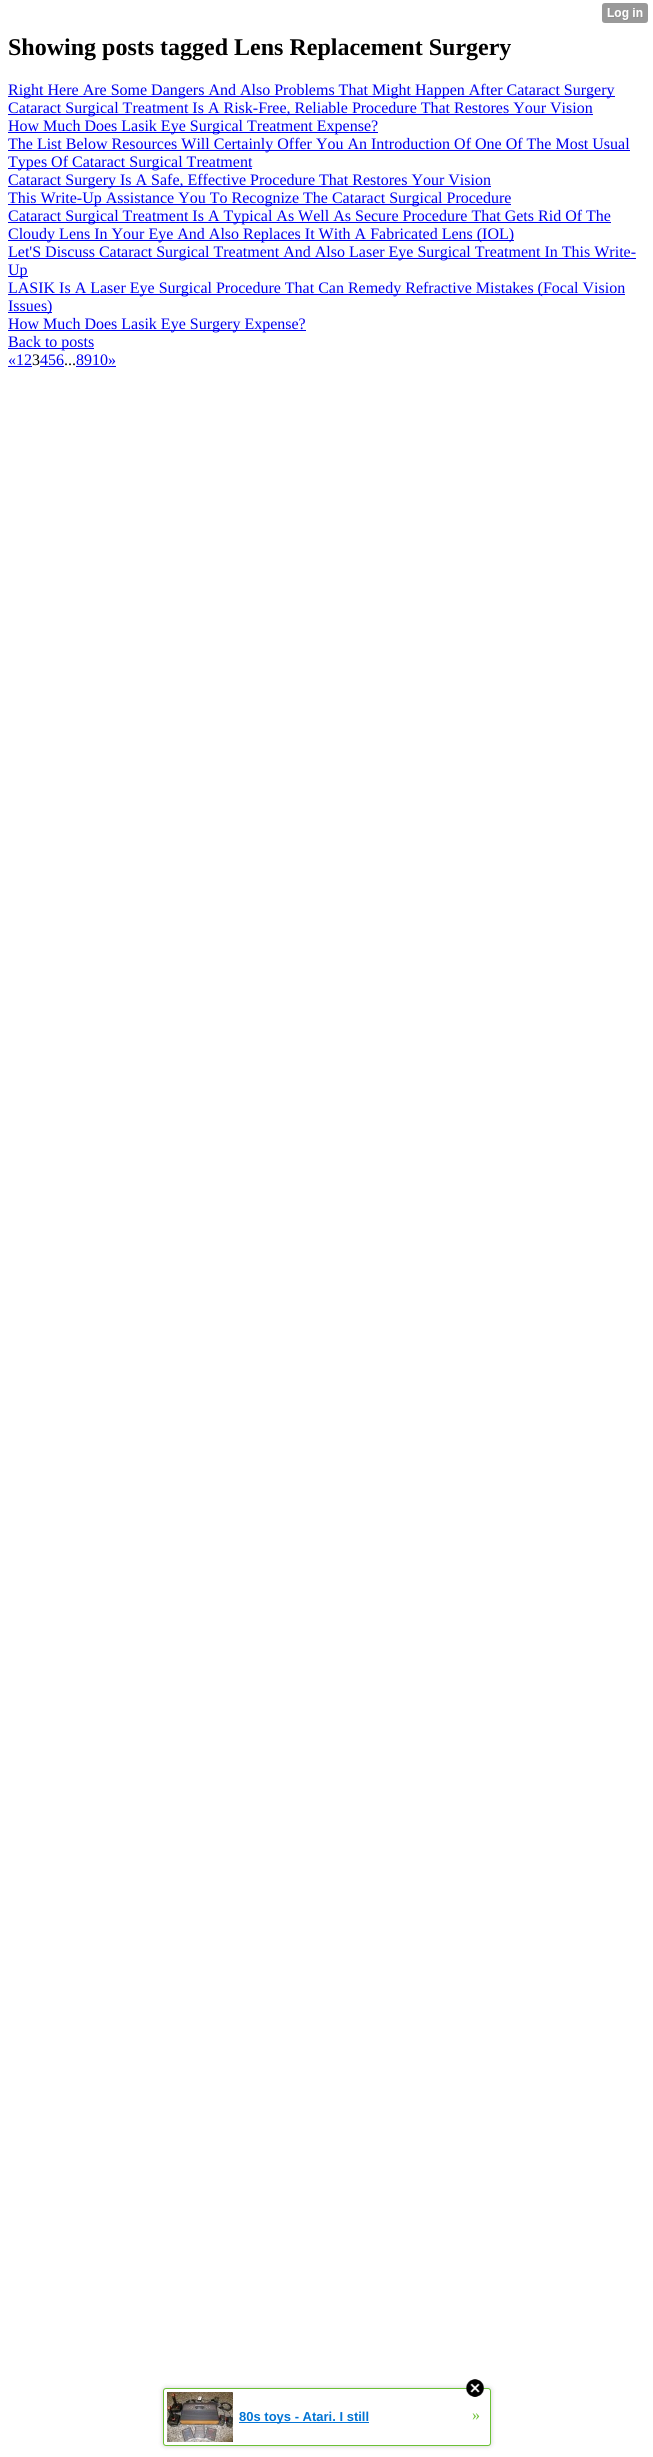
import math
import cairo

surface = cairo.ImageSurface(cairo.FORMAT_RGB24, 653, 2457)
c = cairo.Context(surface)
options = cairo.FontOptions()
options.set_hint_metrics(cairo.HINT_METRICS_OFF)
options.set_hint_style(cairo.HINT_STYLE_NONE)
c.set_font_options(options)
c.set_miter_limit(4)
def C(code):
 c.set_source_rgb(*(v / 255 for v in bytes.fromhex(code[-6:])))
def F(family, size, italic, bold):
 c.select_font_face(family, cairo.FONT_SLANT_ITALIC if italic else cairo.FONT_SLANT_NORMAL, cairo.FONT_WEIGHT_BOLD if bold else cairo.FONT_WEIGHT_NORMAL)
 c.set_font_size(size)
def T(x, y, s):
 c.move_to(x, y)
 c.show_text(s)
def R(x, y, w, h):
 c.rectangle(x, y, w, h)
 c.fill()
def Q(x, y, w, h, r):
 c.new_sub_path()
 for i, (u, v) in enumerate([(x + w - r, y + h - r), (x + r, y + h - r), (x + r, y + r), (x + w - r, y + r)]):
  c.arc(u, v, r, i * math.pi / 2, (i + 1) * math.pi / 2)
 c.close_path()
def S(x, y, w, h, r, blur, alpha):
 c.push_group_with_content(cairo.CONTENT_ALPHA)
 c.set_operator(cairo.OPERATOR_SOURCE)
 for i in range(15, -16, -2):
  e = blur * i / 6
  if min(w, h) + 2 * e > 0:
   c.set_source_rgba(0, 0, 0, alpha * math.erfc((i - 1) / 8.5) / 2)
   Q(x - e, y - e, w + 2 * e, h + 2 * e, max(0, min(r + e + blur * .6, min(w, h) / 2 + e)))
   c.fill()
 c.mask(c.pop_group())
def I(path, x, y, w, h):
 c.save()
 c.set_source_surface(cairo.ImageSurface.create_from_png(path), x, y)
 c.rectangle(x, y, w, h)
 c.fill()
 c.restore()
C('ffffff')
c.paint()
I('1.png',602,3,46,20)
F('Liberation Serif',24,0,1)
C('000000')
T(8,55,'Showing posts tagged Lens Replacement Surgery')
C('0000ee')
R(8,96,607,1)
F('Liberation Serif',16,0,0)
T(8,95,'Right Here Are Some Dangers And Also Problems That Might Happen After Cataract Surgery')
R(8,114,585,1)
T(8,113,'Cataract Surgical Treatment Is A Risk-Free, Reliable Procedure That Restores Your Vision')
R(8,132,370,1)
T(8,131,'How Much Does Lasik Eye Surgical Treatment Expense?')
R(8,150,622,1)
T(8,149,'The List Below Resources Will Certainly Offer You An Introduction Of One Of The Most Usual')
R(8,168,244,1)
T(8,167,'Types Of Cataract Surgical Treatment')
R(8,186,483,1)
T(8,185,'Cataract Surgery Is A Safe, Effective Procedure That Restores Your Vision')
R(8,204,503,1)
T(8,203,'This Write-Up Assistance You To Recognize The Cataract Surgical Procedure')
R(8,222,603,1)
T(8,221,'Cataract Surgical Treatment Is A Typical As Well As Secure Procedure That Gets Rid Of The')
R(8,240,506,1)
T(8,239,'Cloudy Lens In Your Eye And Also Replaces It With A Fabricated Lens (IOL)')
R(8,258,628,1)
T(8,257,'Let\'S Discuss Cataract Surgical Treatment And Also Laser Eye Surgical Treatment In This Write-')
R(8,276,20,1)
T(8,275,'Up')
R(8,294,617,1)
T(8,293,'LASIK Is A Laser Eye Surgical Procedure That Can Remedy Refractive Mistakes (Focal Vision')
R(8,312,44,1)
T(8,311,'Issues)')
R(8,330,298,1)
T(8,329,'How Much Does Lasik Eye Surgery Expense?')
R(8,348,86,1)
T(8,347,'Back to posts')
T(8,365,'«12')
R(8,366,24,1)
C('000000')
T(32,365,'3')
C('0000ee')
T(40,365,'456')
R(40,366,24,1)
C('000000')
T(64,365,'...')
C('0000ee')
T(76,365,'8910»')
R(76,366,40,1)
C('000000')
S(163,2388,328,58,3,2.5,.2)
C('ffffff')
Q(163.5,2388.5,327,57,2.5)
c.fill_preserve()
C('6bc135')
c.set_line_width(1)
c.stroke()
I('2.png',466,2379,18,18)
I('3.png',167,2392,66,50)
C('0274d4')
R(239,2422,130,1)
F('Liberation Sans',13,0,1)
T(239,2421,'80s toys - Atari. I still')
F('Liberation Serif',16,0,0)
C('6bc135')
T(472,2420,'»')
surface.write_to_png('o.png')
